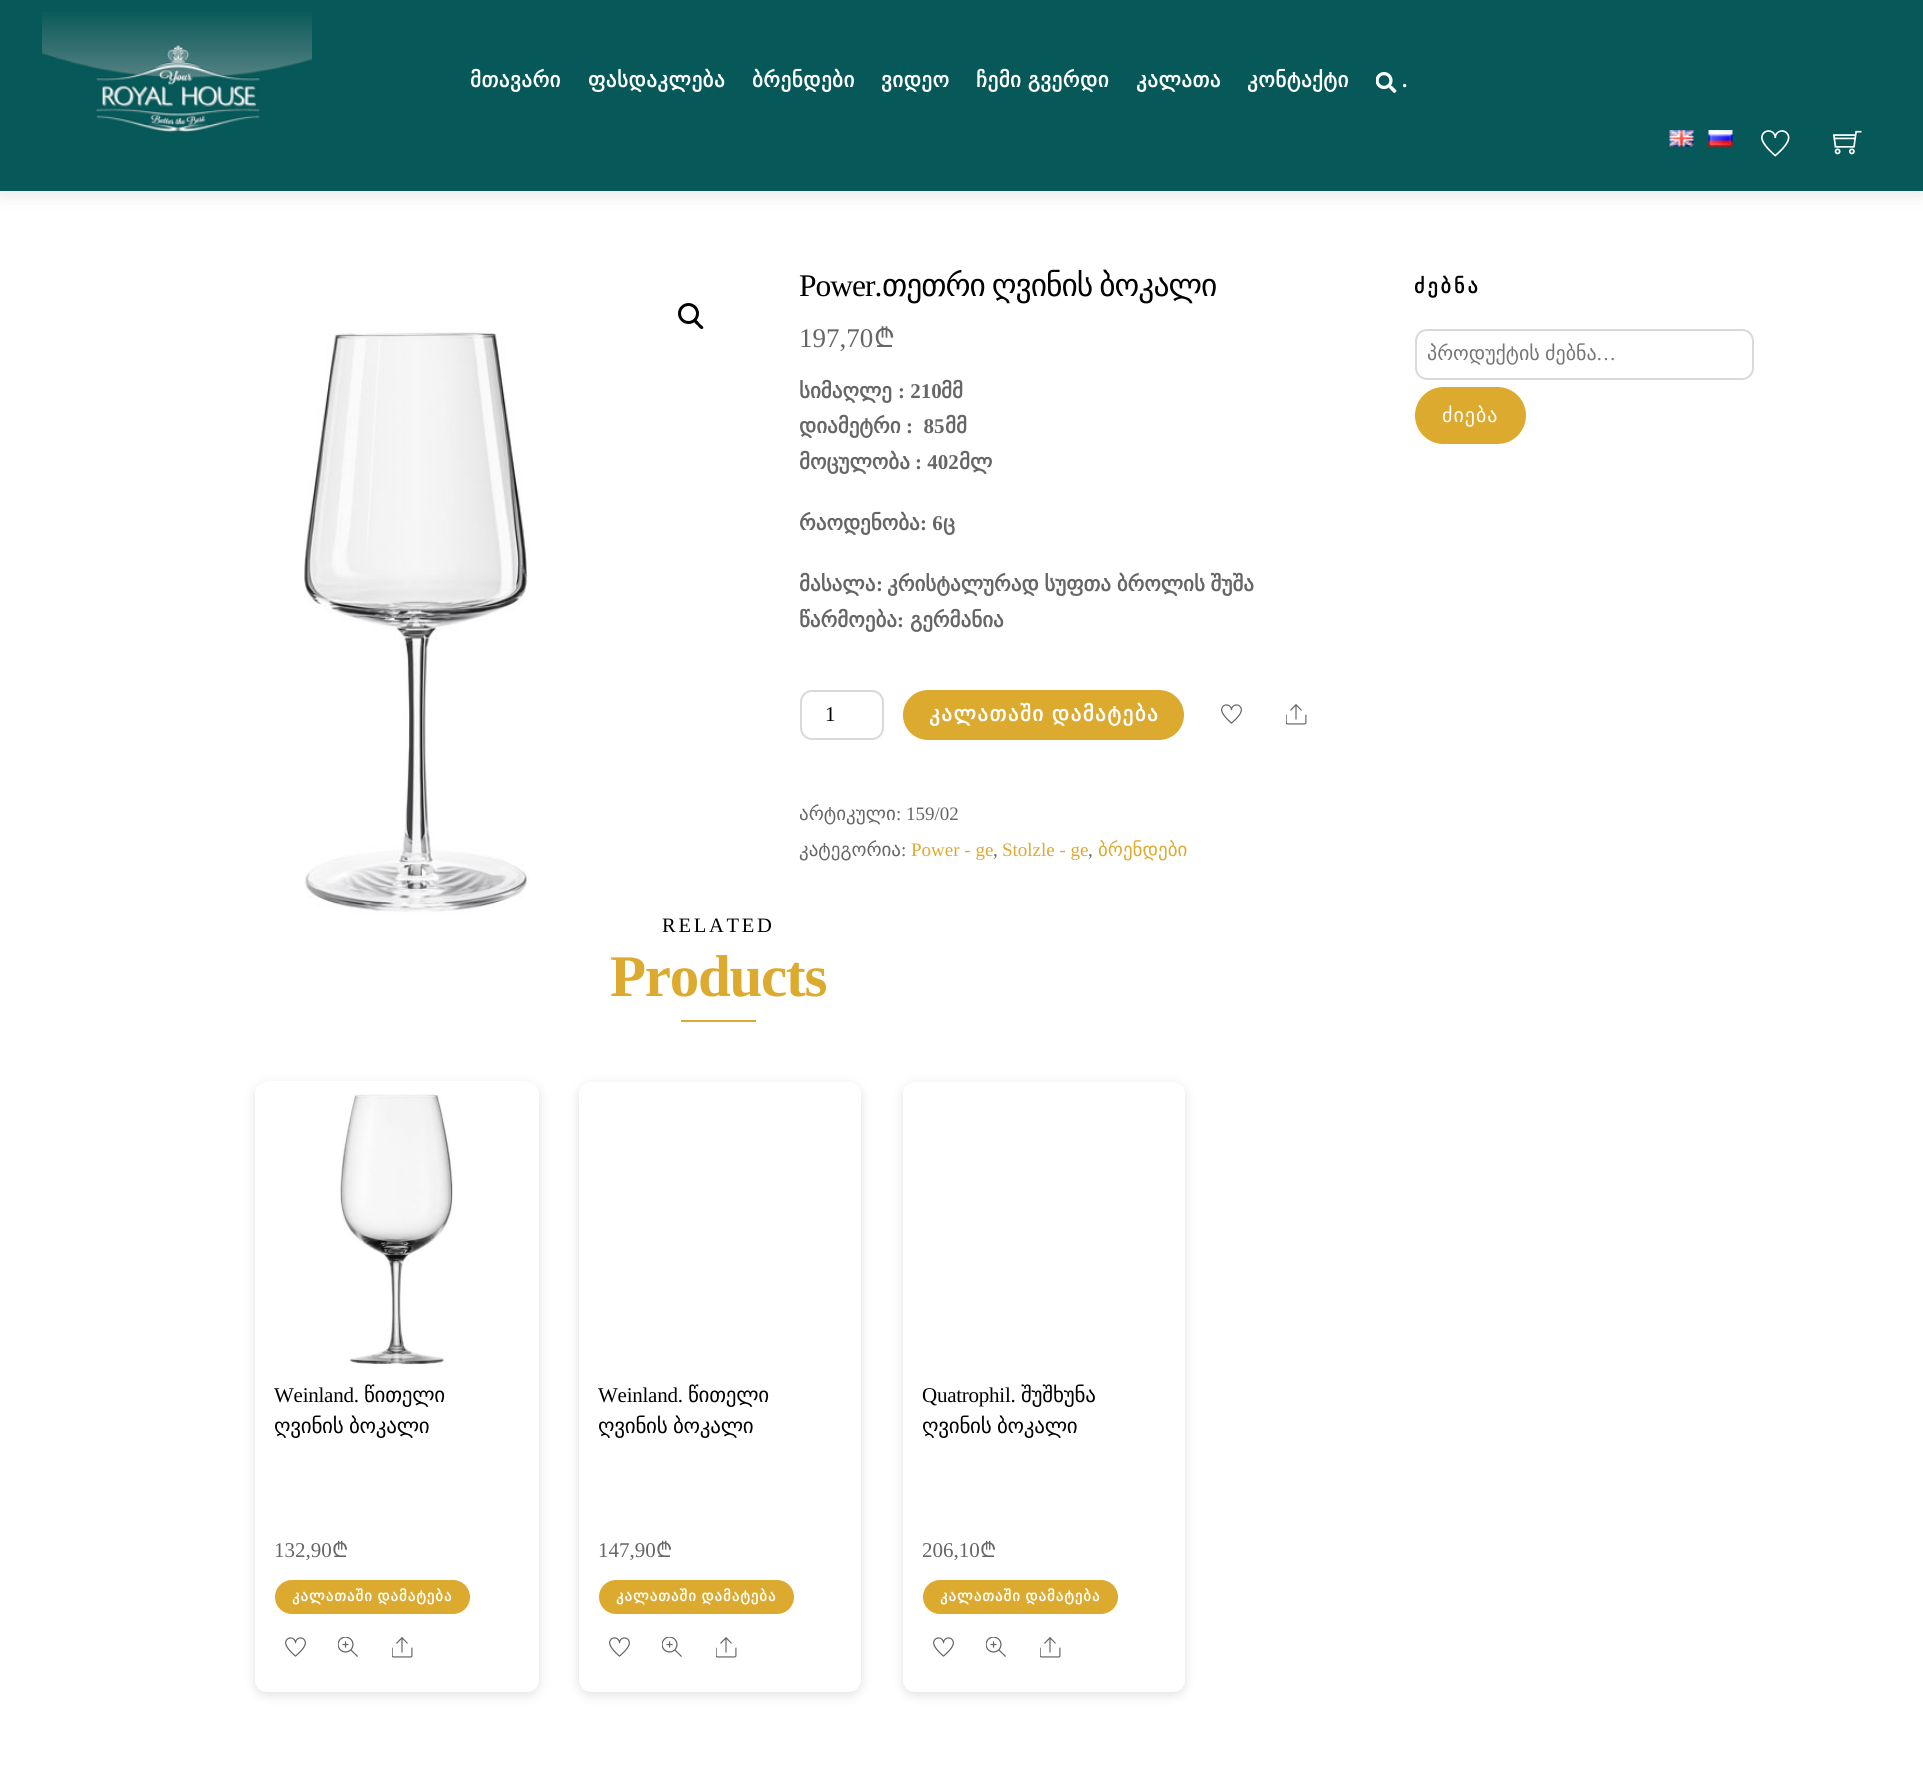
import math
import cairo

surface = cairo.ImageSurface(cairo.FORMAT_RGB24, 1923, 1778)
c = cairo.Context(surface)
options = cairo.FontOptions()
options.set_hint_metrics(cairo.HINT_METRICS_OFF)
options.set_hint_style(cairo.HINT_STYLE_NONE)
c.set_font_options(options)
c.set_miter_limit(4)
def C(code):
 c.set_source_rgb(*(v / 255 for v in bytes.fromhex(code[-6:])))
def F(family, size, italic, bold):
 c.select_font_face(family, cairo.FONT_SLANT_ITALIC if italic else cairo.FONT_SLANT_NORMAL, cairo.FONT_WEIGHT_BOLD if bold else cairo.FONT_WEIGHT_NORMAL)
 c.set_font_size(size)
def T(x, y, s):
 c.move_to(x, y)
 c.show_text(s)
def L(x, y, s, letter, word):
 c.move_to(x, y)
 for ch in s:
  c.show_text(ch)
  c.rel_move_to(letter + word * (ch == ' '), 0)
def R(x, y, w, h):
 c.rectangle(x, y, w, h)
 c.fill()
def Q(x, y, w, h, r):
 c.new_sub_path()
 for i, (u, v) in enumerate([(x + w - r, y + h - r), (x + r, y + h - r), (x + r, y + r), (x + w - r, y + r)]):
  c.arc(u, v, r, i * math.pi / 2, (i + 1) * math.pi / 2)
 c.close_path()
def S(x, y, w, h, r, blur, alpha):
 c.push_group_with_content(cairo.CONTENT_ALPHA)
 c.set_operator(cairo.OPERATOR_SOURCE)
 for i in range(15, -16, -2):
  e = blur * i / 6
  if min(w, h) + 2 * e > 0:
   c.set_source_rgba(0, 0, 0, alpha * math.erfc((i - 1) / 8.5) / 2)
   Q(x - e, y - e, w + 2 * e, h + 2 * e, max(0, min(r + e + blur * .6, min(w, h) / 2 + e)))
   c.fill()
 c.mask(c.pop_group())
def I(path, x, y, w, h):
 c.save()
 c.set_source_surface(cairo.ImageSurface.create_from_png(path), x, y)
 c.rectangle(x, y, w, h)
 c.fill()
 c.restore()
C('ffffff')
c.paint()
C('000000')
S(0,2,1923,190,0,11,.12)
C('075959')
R(0,0,1923,191)
I('1.png',42,12,270,163)
F('DejaVu Sans',21,0,1)
C('ffffff')
L(470,87,'მთავარი',.5,0)
L(588,87,'ფასდაკლება',.5,0)
L(752,87,'ბრენდები',.5,0)
L(881,87,'ვიდეო',.5,0)
L(976,87,'ჩემი გვერდი',.5,-1)
L(1136,87,'კალათა',.5,0)
L(1247,87,'კონტაქტი',.5,0)
I('2.png',1376,72,21,21)
F('Liberation Serif',21,0,1)
L(1402,87,'.',.5,0)
I('3.png',1669,130,25,17)
I('4.png',1708,130,25,17)
I('5.png',1761,130,29,27)
I('6.png',1833,130,29,25)
c.arc(688.5,313.5,9,0,2 * math.pi)
C('000000')
c.set_line_width(3)
c.stroke()
c.new_path()
c.move_to(694.5,320)
c.curve_to(696,318.5,699,322.5,699.5,323.5)
c.curve_to(700.5,324.5,704.5,327,703,328.5)
c.curve_to(701,330.5,698.5,326.5,697.5,325.5)
c.curve_to(696.5,324.5,692.5,322,694.5,320)
c.close_path()
c.fill()
I('7.png',304,332,226,583)
F('Liberation Serif',31.5,0,0)
L(799,296,'Power.',-1,0)
F('DejaVu Sans',31.5,0,0)
L(882,296,'თეთრი ღვინის ბოკალი',-1,-2)
F('Liberation Serif',27,0,0)
C('666666')
T(799,347,'197,70')
F('Noto Sans',27,0,0)
T(874,347,'₾')
F('DejaVu Sans',21,0,1)
T(799,398,'სიმაღლე')
F('Liberation Serif',21,0,1)
T(898,398,': 210')
F('DejaVu Sans',21,0,1)
T(941,398,'მმ')
T(799,433,'დიამეტრი')
F('Liberation Serif',21,0,1)
T(906,433,':  85')
F('DejaVu Sans',21,0,1)
T(945,433,'მმ')
T(799,469,'მოცულობა')
F('Liberation Serif',21,0,1)
T(915,469,': 402')
F('DejaVu Sans',21,0,1)
T(959,469,'მლ')
T(799,530,'რაოდენობა')
F('Liberation Serif',21,0,1)
T(920,530,': 6')
F('DejaVu Sans',21,0,1)
T(943,530,'ც')
T(799,591,'მასალა')
F('Liberation Serif',21,0,1)
T(876,591,':')
F('DejaVu Sans',21,0,1)
L(887,591,'კრისტალურად სუფთა ბროლის შუშა',0,-1)
T(799,627,'წარმოება')
F('Liberation Serif',21,0,1)
T(897,627,':')
F('DejaVu Sans',21,0,1)
T(910,627,'გერმანია')
Q(801,691,82,48,11)
C('d9d9d9')
c.set_line_width(2)
c.stroke()
F('Liberation Serif',21,0,0)
C('000000')
T(825,721,'1')
C('dcaa2e')
Q(903,690,281,50,25)
c.fill()
F('DejaVu Sans',21,0,1)
C('ffffff')
L(929,721,'კალათაში დამატება',1.5,-1)
I('8.png',1221,704,21,20)
I('9.png',1286,704,21,21)
F('DejaVu Sans',19,0,0)
C('666666')
T(799,820,'არტიკული')
F('Liberation Serif',19,0,0)
T(896,820,': 159/02')
F('DejaVu Sans',19,0,0)
T(799,856,'კატეგორია')
F('Liberation Serif',19,0,0)
T(901,856,':')
C('dcaa2e')
T(911,856,'Power - ge')
C('666666')
T(993,856,',')
C('dcaa2e')
T(1002,856,'Stolzle - ge')
C('666666')
T(1088,856,',')
F('DejaVu Sans',19,0,0)
C('dcaa2e')
T(1098,856,'ბრენდები')
F('Liberation Serif',20.5,0,0)
C('000000')
L(662,932,'RELATED',2.75,0)
F('Liberation Serif',59,0,1)
C('dcaa2e')
L(610,996,'Products',-1.25,0)
R(681,1020,75,2)
C('000000')
S(255,1085,284,610,12,6,.12)
C('ffffff')
Q(255,1082,284,610,12)
c.fill()
I('10.png',267,1081,260,284)
F('Liberation Serif',21,0,0)
C('000000')
L(274,1402,'Weinland.',-.25,0)
F('DejaVu Sans',21,0,0)
L(364,1402,'წითელი',-.25,0)
L(274,1433,'ღვინის ბოკალი',-.25,-1)
F('Liberation Serif',21,0,0)
C('666666')
T(274,1557,'132,90')
F('Noto Sans',21,0,0)
T(332,1557,'₾')
C('dcaa2e')
Q(275,1580,195,34,17)
c.fill()
F('DejaVu Sans',14.75,0,1)
C('ffffff')
L(292,1601,'კალათაში დამატება',1,-1)
I('8.png',285,1637,21,20)
I('11.png',338,1637,20,20)
I('9.png',392,1637,21,21)
C('000000')
S(579,1085,282,610,12,6,.12)
C('ffffff')
Q(579,1082,282,610,12)
c.fill()
F('Liberation Serif',21,0,0)
C('000000')
L(598,1402,'Weinland.',-.25,0)
F('DejaVu Sans',21,0,0)
L(688,1402,'წითელი',-.25,0)
L(598,1433,'ღვინის ბოკალი',-.25,-1)
F('Liberation Serif',21,0,0)
C('666666')
T(598,1557,'147,90')
F('Noto Sans',21,0,0)
T(656,1557,'₾')
C('dcaa2e')
Q(599,1580,195,34,17)
c.fill()
F('DejaVu Sans',14.75,0,1)
C('ffffff')
L(616,1601,'კალათაში დამატება',1,-1)
I('8.png',609,1637,21,20)
I('11.png',662,1637,20,20)
I('9.png',716,1637,21,21)
C('000000')
S(903,1085,282,610,12,6,.12)
C('ffffff')
Q(903,1082,282,610,12)
c.fill()
F('Liberation Serif',21,0,0)
C('000000')
L(922,1402,'Quatrophil.',-.25,0)
F('DejaVu Sans',21,0,0)
L(1021,1402,'შუშხუნა',-.25,0)
L(922,1433,'ღვინის ბოკალი',-.25,-1)
F('Liberation Serif',21,0,0)
C('666666')
T(922,1557,'206,10')
F('Noto Sans',21,0,0)
T(980,1557,'₾')
C('dcaa2e')
Q(923,1580,195,34,17)
c.fill()
F('DejaVu Sans',14.75,0,1)
C('ffffff')
L(940,1601,'კალათაში დამატება',1,-1)
I('8.png',933,1637,21,20)
I('11.png',986,1637,20,20)
I('9.png',1040,1637,21,21)
F('DejaVu Sans',20,0,1)
C('000000')
L(1414,293,'ძებნა',3,0)
Q(1416,330,337,49,11)
C('d9d9d9')
c.stroke()
F('DejaVu Sans',20,0,0)
C('757575')
L(1427,360,'პროდუქტის ძებნა',0,-1)
F('Liberation Serif',20,0,0)
T(1596,360,'…')
C('dcaa2e')
Q(1415,387,111,57,28.5)
c.fill()
F('DejaVu Sans',20,0,0)
C('ffffff')
L(1442,422,'ძიება',1,0)
surface.write_to_png('o.png')
